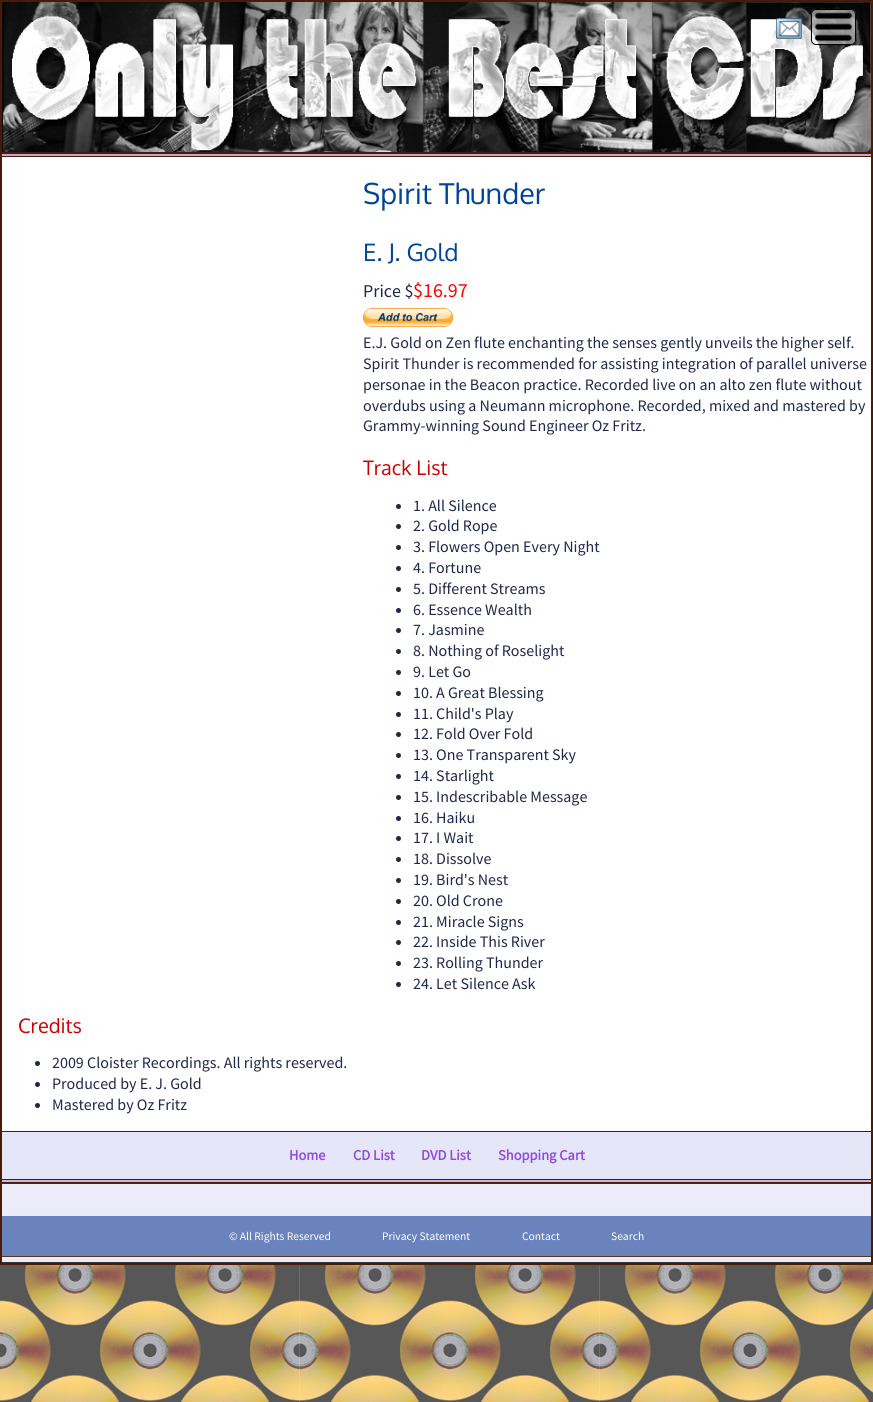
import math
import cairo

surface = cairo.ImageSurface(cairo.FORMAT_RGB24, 873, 1402)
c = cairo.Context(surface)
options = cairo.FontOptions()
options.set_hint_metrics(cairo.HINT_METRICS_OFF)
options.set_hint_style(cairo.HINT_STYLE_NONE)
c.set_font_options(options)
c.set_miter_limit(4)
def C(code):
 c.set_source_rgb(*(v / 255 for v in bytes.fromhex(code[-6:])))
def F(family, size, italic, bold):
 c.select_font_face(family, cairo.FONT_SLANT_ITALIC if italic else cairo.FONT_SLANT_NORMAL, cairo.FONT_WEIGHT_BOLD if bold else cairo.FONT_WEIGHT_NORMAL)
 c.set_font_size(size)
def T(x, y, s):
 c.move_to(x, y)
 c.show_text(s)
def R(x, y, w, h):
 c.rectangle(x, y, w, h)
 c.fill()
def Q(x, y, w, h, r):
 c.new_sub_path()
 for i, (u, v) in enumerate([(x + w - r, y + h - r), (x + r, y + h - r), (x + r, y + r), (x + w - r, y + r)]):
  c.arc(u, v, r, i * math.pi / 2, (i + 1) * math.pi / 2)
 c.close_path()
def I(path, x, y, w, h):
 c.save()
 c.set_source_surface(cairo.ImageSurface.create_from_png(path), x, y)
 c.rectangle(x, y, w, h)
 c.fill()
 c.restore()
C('ffffff')
c.paint()
I('1.png',0,1265,873,137)
c.rectangle(1,1,871,1263)
C('4a1b04')
c.stroke()
I('2.png',2,2,435,150)
I('3.png',437,2,434,150)
I('4.png',776,18,27,21)
c.set_source_rgba(1,1,1,0.5)
Q(811,9,45,36,5)
c.fill()
I('5.png',814,12,38,29)
Q(811.5,9.5,44,35,4.5)
C('000000')
c.set_line_width(1)
c.stroke()
C('4a1b04')
R(2,152,869,2)
C('bda6d4')
R(2,154,869,2)
C('4a1b04')
R(2,156,869,1)
F('Oxygen',28.75,0,0)
C('004499')
T(363,204,'Spirit Thunder')
F('Oxygen',24,0,0)
T(363,261,'E. J. Gold')
F('Source Sans Pro',18,0,0)
C('1e284d')
T(363,297,'Price $')
F('Source Sans Pro',20,0,0)
C('ff0000')
T(413,297,'$16.97')
I('6.png',363,308,90,19)
F('Source Sans Pro',16,0,0)
C('1e284d')
T(363,348,'E.J. Gold on Zen flute enchanting the senses gently unveils the higher self.')
T(363,369,'Spirit Thunder is recommended for assisting integration of parallel universe')
T(363,390,'personae in the Beacon practice. Recorded live on an alto zen flute without')
T(363,411,'overdubs using a Neumann microphone. Recorded, mixed and mastered by')
T(363,431,'Grammy-winning Sound Engineer Oz Fritz.')
F('Oxygen',20,0,0)
C('cc0000')
T(363,475,'Track List')
C('1e284d')
c.new_path()
c.arc(398.5,506.5,2.5,0,2 * math.pi)
c.fill()
F('Source Sans Pro',16,0,0)
T(413,511,'1. All Silence')
c.new_path()
c.arc(398.5,526.5,2.5,0,2 * math.pi)
c.fill()
T(413,531,'2. Gold Rope')
c.new_path()
c.arc(398.5,547.5,2.5,0,2 * math.pi)
c.fill()
T(413,552,'3. Flowers Open Every Night')
c.new_path()
c.arc(398.5,568.5,2.5,0,2 * math.pi)
c.fill()
T(413,573,'4. Fortune')
c.new_path()
c.arc(398.5,589.5,2.5,0,2 * math.pi)
c.fill()
T(413,594,'5. Different Streams')
c.new_path()
c.arc(398.5,610.5,2.5,0,2 * math.pi)
c.fill()
T(413,615,'6. Essence Wealth')
c.new_path()
c.arc(398.5,630.5,2.5,0,2 * math.pi)
c.fill()
T(413,635,'7. Jasmine')
c.new_path()
c.arc(398.5,651.5,2.5,0,2 * math.pi)
c.fill()
T(413,656,'8. Nothing of Roselight')
c.new_path()
c.arc(398.5,672.5,2.5,0,2 * math.pi)
c.fill()
T(413,677,'9. Let Go')
c.new_path()
c.arc(398.5,693.5,2.5,0,2 * math.pi)
c.fill()
T(413,698,'10. A Great Blessing')
c.new_path()
c.arc(398.5,714.5,2.5,0,2 * math.pi)
c.fill()
T(413,719,'11. Child\'s Play')
c.new_path()
c.arc(398.5,734.5,2.5,0,2 * math.pi)
c.fill()
T(413,739,'12. Fold Over Fold')
c.new_path()
c.arc(398.5,755.5,2.5,0,2 * math.pi)
c.fill()
T(413,760,'13. One Transparent Sky')
c.new_path()
c.arc(398.5,776.5,2.5,0,2 * math.pi)
c.fill()
T(413,781,'14. Starlight')
c.new_path()
c.arc(398.5,797.5,2.5,0,2 * math.pi)
c.fill()
T(413,802,'15. Indescribable Message')
c.new_path()
c.arc(398.5,818.5,2.5,0,2 * math.pi)
c.fill()
T(413,823,'16. Haiku')
c.new_path()
c.arc(398.5,838.5,2.5,0,2 * math.pi)
c.fill()
T(413,843,'17. I Wait')
c.new_path()
c.arc(398.5,859.5,2.5,0,2 * math.pi)
c.fill()
T(413,864,'18. Dissolve')
c.new_path()
c.arc(398.5,880.5,2.5,0,2 * math.pi)
c.fill()
T(413,885,'19. Bird\'s Nest')
c.new_path()
c.arc(398.5,901.5,2.5,0,2 * math.pi)
c.fill()
T(413,906,'20. Old Crone')
c.new_path()
c.arc(398.5,922.5,2.5,0,2 * math.pi)
c.fill()
T(413,927,'21. Miracle Signs')
c.new_path()
c.arc(398.5,942.5,2.5,0,2 * math.pi)
c.fill()
T(413,947,'22. Inside This River')
c.new_path()
c.arc(398.5,963.5,2.5,0,2 * math.pi)
c.fill()
T(413,968,'23. Rolling Thunder')
c.new_path()
c.arc(398.5,984.5,2.5,0,2 * math.pi)
c.fill()
T(413,989,'24. Let Silence Ask')
F('Oxygen',20,0,0)
C('cc0000')
T(18,1033,'Credits')
C('1e284d')
c.new_path()
c.arc(37.5,1063.5,2.5,0,2 * math.pi)
c.fill()
F('Source Sans Pro',16,0,0)
T(52,1068,'2009 Cloister Recordings. All rights reserved.')
c.new_path()
c.arc(37.5,1084.5,2.5,0,2 * math.pi)
c.fill()
T(52,1089,'Produced by E. J. Gold')
c.new_path()
c.arc(37.5,1105.5,2.5,0,2 * math.pi)
c.fill()
T(52,1110,'Mastered by Oz Fritz')
C('e5e6f8')
R(2,1132,869,47)
C('4a1b04')
R(2,1131,869,1)
R(2,1179,869,1)
F('Source Sans Pro',14.5,0,1)
C('8e4bdb')
T(289,1160,'Home')
T(353,1160,'CD List')
T(421,1160,'DVD List')
T(498,1160,'Shopping Cart')
C('cbb7dd')
R(2,1180,869,2)
C('4a1b04')
R(2,1182,869,1)
C('ebebfa')
R(2,1184,869,78)
C('333333')
R(2,1183,869,1)
R(2,1262,869,1)
C('6a83bc')
R(2,1216,869,40)
C('563814')
R(2,1256,869,1)
F('Source Sans Pro',11.5,0,0)
C('ffffff')
T(229,1240,'© All Rights Reserved')
T(382,1240,'Privacy Statement')
T(522,1240,'Contact')
T(611,1240,'Search')
surface.write_to_png('o.png')
